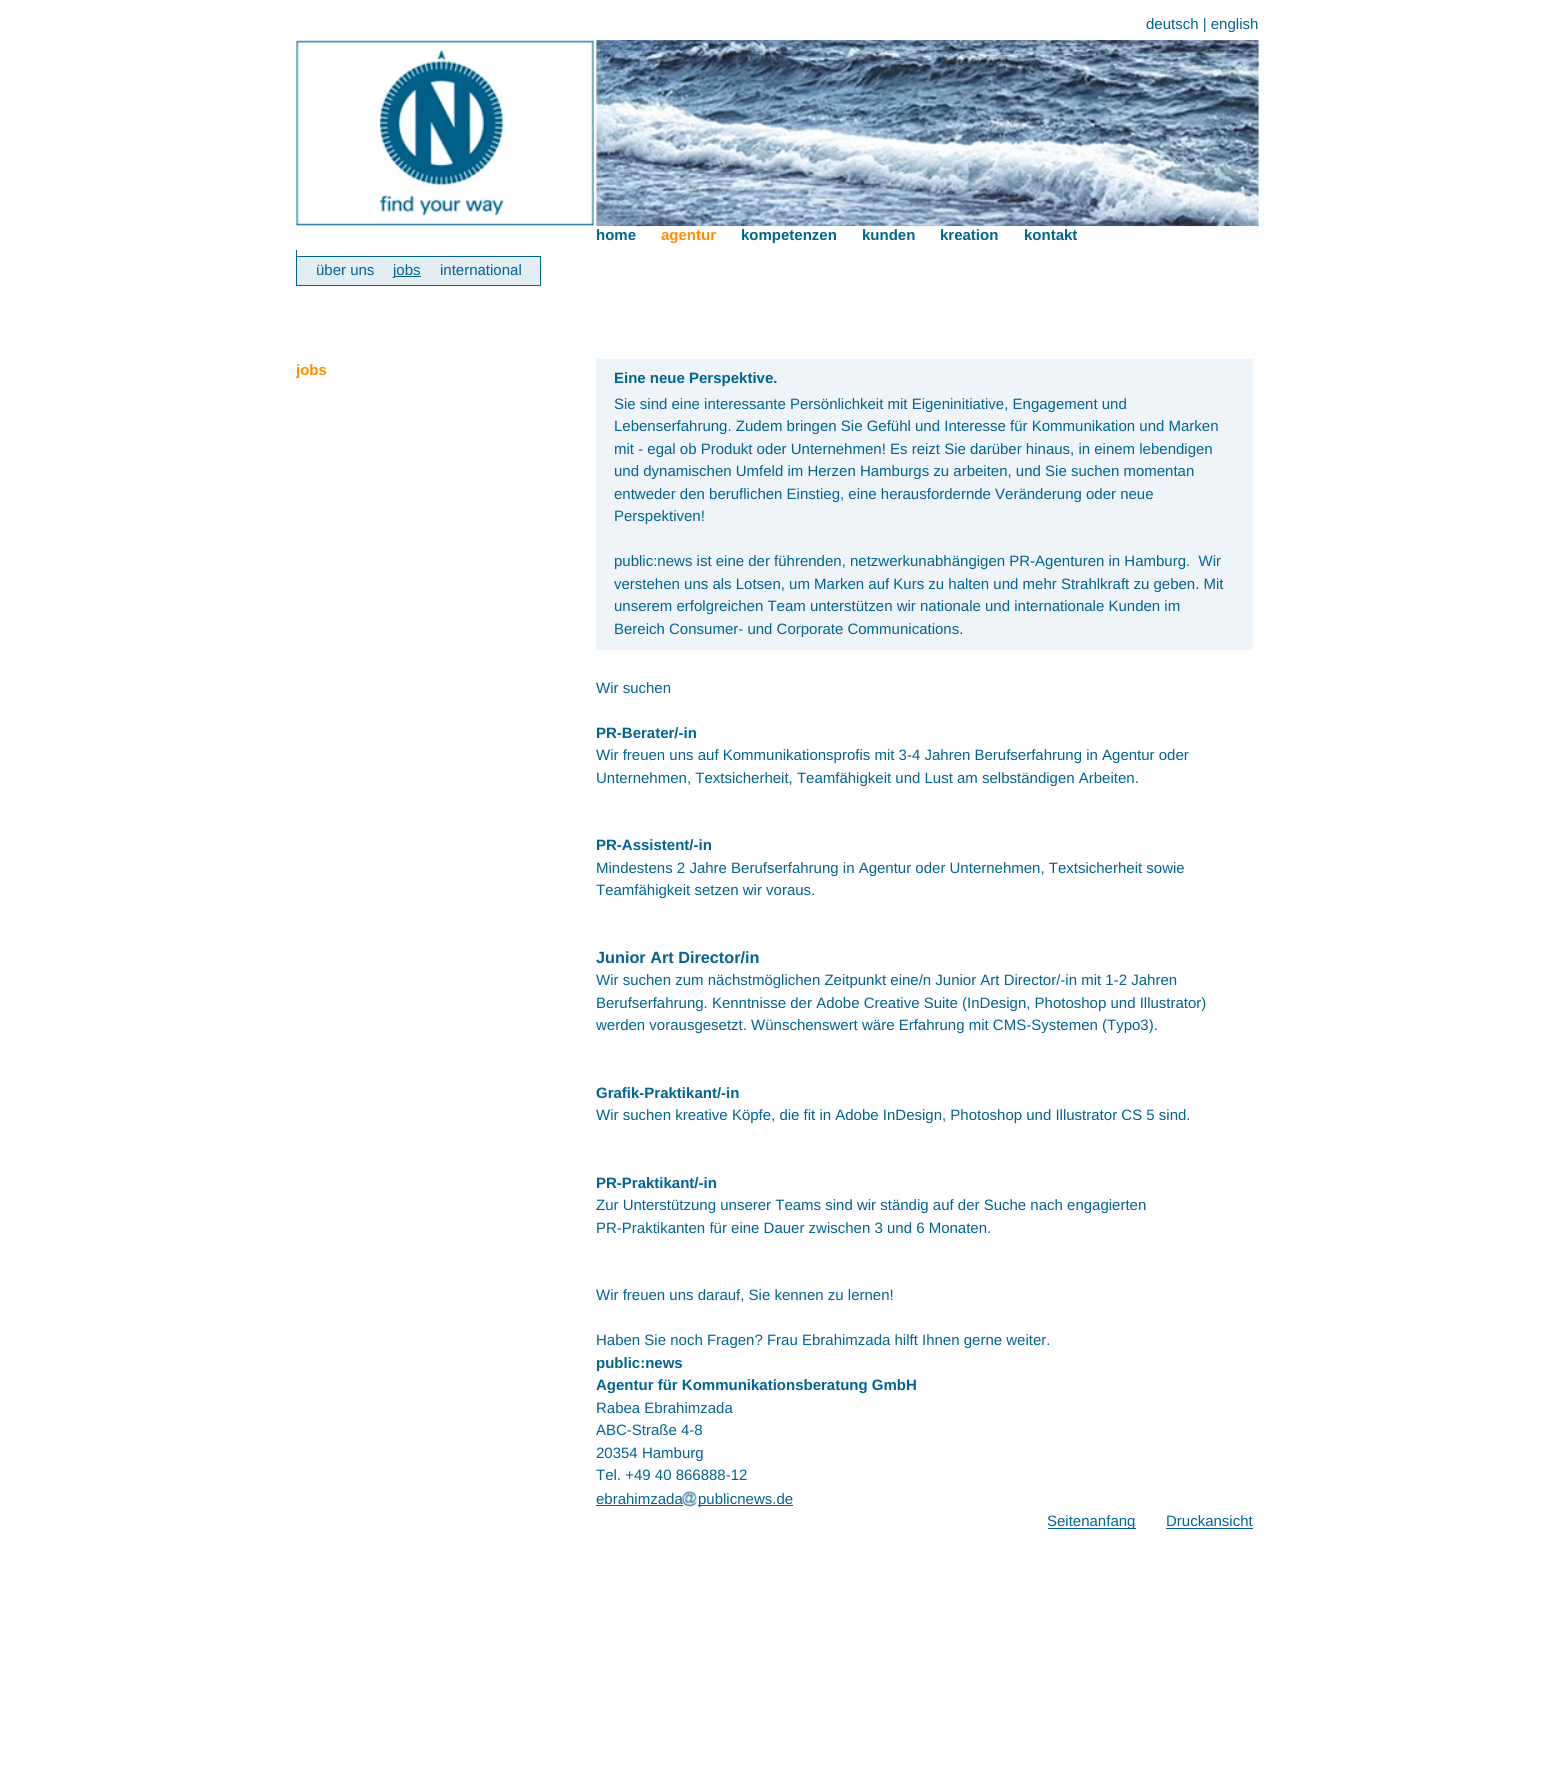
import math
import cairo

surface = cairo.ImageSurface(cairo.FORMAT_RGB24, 1554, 1775)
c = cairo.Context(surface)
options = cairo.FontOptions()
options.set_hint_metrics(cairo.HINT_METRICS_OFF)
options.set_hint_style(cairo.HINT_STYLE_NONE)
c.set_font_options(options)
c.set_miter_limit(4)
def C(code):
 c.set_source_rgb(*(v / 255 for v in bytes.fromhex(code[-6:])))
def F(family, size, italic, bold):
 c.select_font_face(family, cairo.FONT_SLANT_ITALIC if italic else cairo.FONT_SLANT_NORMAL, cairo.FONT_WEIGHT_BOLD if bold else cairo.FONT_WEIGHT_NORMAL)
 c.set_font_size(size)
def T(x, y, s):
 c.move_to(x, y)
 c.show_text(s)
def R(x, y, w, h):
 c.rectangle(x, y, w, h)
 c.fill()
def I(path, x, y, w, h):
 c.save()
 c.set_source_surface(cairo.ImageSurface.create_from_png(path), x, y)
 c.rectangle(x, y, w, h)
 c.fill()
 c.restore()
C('ffffff')
c.paint()
F('Liberation Sans',15,0,0)
C('006390')
T(1146,29,'deutsch | english')
I('1.png',296,40,298,186)
I('2.png',596,40,663,187)
F('Liberation Sans',15,0,1)
T(596,240,'home')
C('ff8f00')
T(661,240,'agentur')
C('006390')
T(741,240,'kompetenzen')
T(862,240,'kunden')
T(940,240,'kreation')
T(1024,240,'kontakt')
C('ff8f00')
T(296,375,'jobs')
C('eff4f8')
R(596,359,657,291)
C('006390')
T(614,383,'Eine neue Perspektive.')
F('Liberation Sans',15,0,0)
T(614,409,'Sie sind eine interessante Persönlichkeit mit Eigeninitiative, Engagement und')
T(614,431,'Lebenserfahrung. Zudem bringen Sie Gefühl und Interesse für Kommunikation und Marken')
T(614,454,'mit - egal ob Produkt oder Unternehmen! Es reizt Sie darüber hinaus, in einem lebendigen')
T(614,476,'und dynamischen Umfeld im Herzen Hamburgs zu arbeiten, und Sie suchen momentan')
T(614,499,'entweder den beruflichen Einstieg, eine herausfordernde Veränderung oder neue')
T(614,521,'Perspektiven!')
T(614,566,'public:news ist eine der führenden, netzwerkunabhängigen PR-Agenturen in Hamburg.  Wir')
T(614,589,'verstehen uns als Lotsen, um Marken auf Kurs zu halten und mehr Strahlkraft zu geben. Mit')
T(614,611,'unserem erfolgreichen Team unterstützen wir nationale und internationale Kunden im')
T(614,634,'Bereich Consumer- und Corporate Communications.')
T(596,693,'Wir suchen')
F('Liberation Sans',15,0,1)
T(596,738,'PR-Berater/-in')
F('Liberation Sans',15,0,0)
T(596,760,'Wir freuen uns auf Kommunikationsprofis mit 3-4 Jahren Berufserfahrung in Agentur oder')
T(596,783,'Unternehmen, Textsicherheit, Teamfähigkeit und Lust am selbständigen Arbeiten.')
F('Liberation Sans',15,0,1)
T(596,850,'PR-Assistent/-in')
F('Liberation Sans',15,0,0)
T(596,873,'Mindestens 2 Jahre Berufserfahrung in Agentur oder Unternehmen, Textsicherheit sowie')
T(596,895,'Teamfähigkeit setzen wir voraus.')
F('Liberation Sans',16.25,0,1)
T(596,963,'Junior Art Director/in')
F('Liberation Sans',15,0,0)
T(596,985,'Wir suchen zum nächstmöglichen Zeitpunkt eine/n Junior Art Director/-in mit 1-2 Jahren')
T(596,1008,'Berufserfahrung. Kenntnisse der Adobe Creative Suite (InDesign, Photoshop und Illustrator)')
T(596,1030,'werden vorausgesetzt. Wünschenswert wäre Erfahrung mit CMS-Systemen (Typo3).')
F('Liberation Sans',15,0,1)
T(596,1098,'Grafik-Praktikant/-in')
F('Liberation Sans',15,0,0)
T(596,1120,'Wir suchen kreative Köpfe, die fit in Adobe InDesign, Photoshop und Illustrator CS 5 sind.')
F('Liberation Sans',15,0,1)
T(596,1188,'PR-Praktikant/-in')
F('Liberation Sans',15,0,0)
T(596,1210,'Zur Unterstützung unserer Teams sind wir ständig auf der Suche nach engagierten')
T(596,1233,'PR-Praktikanten für eine Dauer zwischen 3 und 6 Monaten.')
T(596,1300,'Wir freuen uns darauf, Sie kennen zu lernen!')
T(596,1345,'Haben Sie noch Fragen? Frau Ebrahimzada hilft Ihnen gerne weiter.')
F('Liberation Sans',15,0,1)
T(596,1368,'public:news')
T(596,1390,'Agentur für Kommunikationsberatung GmbH')
F('Liberation Sans',15,0,0)
T(596,1413,'Rabea Ebrahimzada')
T(596,1435,'ABC-Straße 4-8')
T(596,1458,'20354 Hamburg')
T(596,1480,'Tel. +49 40 866888-12')
T(596,1504,'ebrahimzada')
R(596,1505,87,1)
I('3.png',682,1491,15,16)
R(698,1505,95,1)
T(698,1504,'publicnews.de')
R(1048,1528,88,1)
T(1047,1526,'Seitenanfang')
T(1166,1526,'Druckansicht')
R(1166,1528,87,1)
R(296,250,1,8)
C('e2edf4')
c.rectangle(296.5,256.5,244,29)
c.fill_preserve()
C('006390')
c.set_line_width(1)
c.stroke()
T(316,275,'über uns')
R(394,276,27,1)
T(393,275,'jobs')
T(440,275,'international')
surface.write_to_png('o.png')
